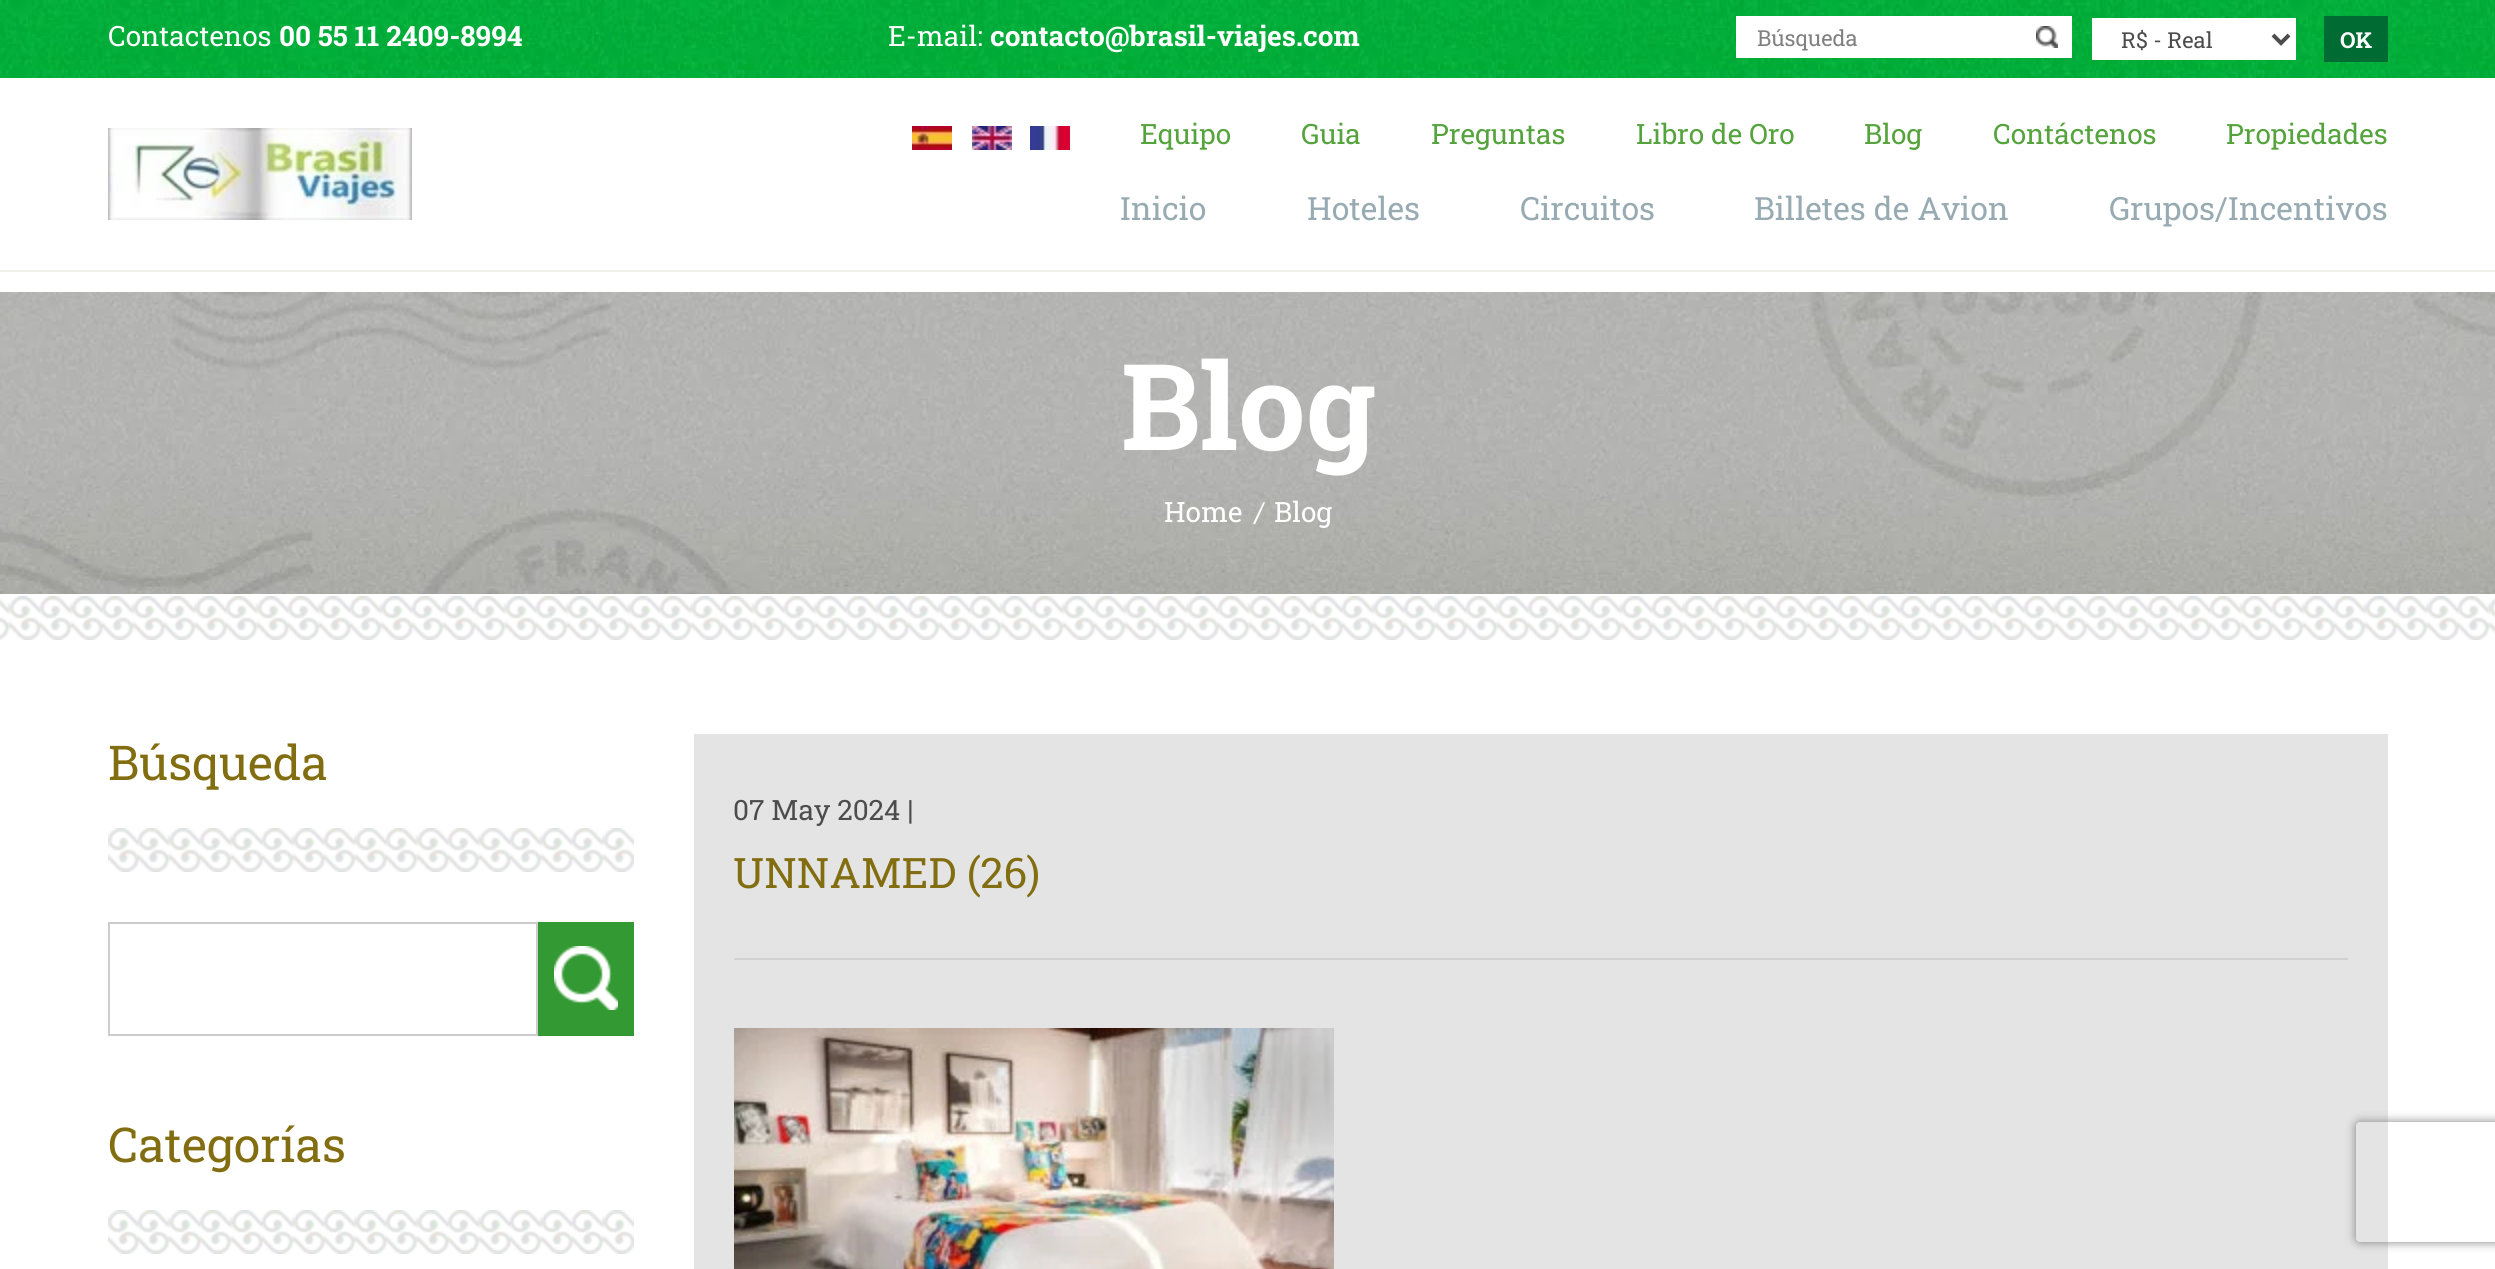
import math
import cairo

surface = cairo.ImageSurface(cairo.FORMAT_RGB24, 2495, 1269)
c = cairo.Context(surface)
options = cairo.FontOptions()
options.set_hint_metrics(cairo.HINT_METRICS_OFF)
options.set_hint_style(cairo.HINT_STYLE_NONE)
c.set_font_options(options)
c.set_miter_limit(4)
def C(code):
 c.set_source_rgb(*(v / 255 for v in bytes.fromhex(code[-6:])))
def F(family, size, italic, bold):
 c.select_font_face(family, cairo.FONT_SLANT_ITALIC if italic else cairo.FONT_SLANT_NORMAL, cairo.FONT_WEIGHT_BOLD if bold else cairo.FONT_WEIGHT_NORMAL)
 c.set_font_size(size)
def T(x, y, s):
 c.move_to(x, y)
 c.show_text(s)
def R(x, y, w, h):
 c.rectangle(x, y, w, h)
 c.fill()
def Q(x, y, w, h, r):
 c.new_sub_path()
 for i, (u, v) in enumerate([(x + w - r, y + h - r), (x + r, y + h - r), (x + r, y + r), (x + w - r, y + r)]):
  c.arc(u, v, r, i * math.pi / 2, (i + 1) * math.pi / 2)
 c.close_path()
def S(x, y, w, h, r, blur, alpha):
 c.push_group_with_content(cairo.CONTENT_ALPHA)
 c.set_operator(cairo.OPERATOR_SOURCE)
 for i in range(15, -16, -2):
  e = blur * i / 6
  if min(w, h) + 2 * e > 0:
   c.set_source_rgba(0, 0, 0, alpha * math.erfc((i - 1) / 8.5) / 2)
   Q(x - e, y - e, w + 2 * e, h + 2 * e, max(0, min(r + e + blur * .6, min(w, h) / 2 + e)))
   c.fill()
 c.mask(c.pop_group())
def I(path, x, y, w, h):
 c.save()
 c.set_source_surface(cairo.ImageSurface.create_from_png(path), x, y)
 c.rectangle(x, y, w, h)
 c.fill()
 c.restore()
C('ffffff')
c.paint()
I('1.png',0,0,2495,78)
F('Roboto Slab',28,0,0)
C('ffffff')
T(108,46,'Contactenos')
F('Roboto Slab',28,0,1)
T(279,46,'00 55 11 2409-8994')
F('Roboto Slab',28,0,0)
T(888,46,'E-mail:')
F('Roboto Slab',28,0,1)
T(990,46,'contacto@brasil-viajes.com')
R(1736,16,336,42)
I('2.png',2036,26,22,22)
F('Roboto Slab',22,0,0)
C('818181')
T(1757,46,'Búsqueda')
C('ffffff')
R(2092,18,204,42)
c.new_path()
c.move_to(2273,35)
c.line_to(2281,43)
c.line_to(2289,35)
C('4c4c4c')
c.set_line_width(4)
c.stroke()
T(2121,48,'R$ - Real')
C('006b33')
R(2324,16,64,46)
F('Roboto Slab',22,0,1)
C('ffffff')
T(2340,48,'OK')
C('f0f2ea')
R(0,270,2495,2)
I('3.png',108,128,304,92)
I('4.png',912,126,40,24)
I('5.png',972,126,40,24)
I('6.png',1030,126,40,24)
F('Roboto Slab',28,0,0)
C('55a33d')
T(1140,144,'Equipo')
T(1301,144,'Guia')
T(1431,144,'Preguntas')
T(1636,144,'Libro de Oro')
T(1864,144,'Blog')
T(1993,144,'Contáctenos')
T(2226,144,'Propiedades')
F('Roboto Slab',32,0,0)
C('98abb2')
T(1120,220,'Inicio')
T(1307,220,'Hoteles')
T(1520,220,'Circuitos')
T(1754,220,'Billetes de Avion')
T(2109,220,'Grupos/Incentivos')
I('7.png',0,292,2495,302)
F('Roboto Slab',120,0,1)
C('ffffff')
T(1121,450,'Blog')
F('Roboto Slab',28,0,0)
T(1164,522,'Home')
c.new_path()
c.move_to(1263.5,502)
c.line_to(1265,502.5)
c.line_to(1255,524.5)
c.line_to(1253,523.5)
c.close_path()
c.fill()
T(1274,522,'Blog')
I('8.png',0,596,2495,44)
F('Roboto Slab',48,0,0)
C('826e10')
T(108,780,'Búsqueda')
I('9.png',108,828,526,44)
c.rectangle(109,923,428,112)
C('cccccc')
c.set_line_width(2)
c.stroke()
C('339933')
R(538,922,96,114)
I('10.png',554,946,64,64)
C('826e10')
T(108,1162,'Categorías')
I('9.png',108,1210,526,44)
C('e4e4e4')
R(694,734,1694,535)
F('Roboto Slab',28,0,0)
C('4c4c4c')
T(733,820,'07 May 2024 |')
C('d1d1d1')
R(734,958,1614,2)
F('Roboto Slab',42,0,0)
C('826e10')
T(733,888,'UNNAMED (26)')
I('11.png',734,1028,600,241)
c.save()
c.set_fill_rule(cairo.FILL_RULE_EVEN_ODD)
c.new_path()
c.move_to(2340,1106)
c.line_to(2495,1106)
c.line_to(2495,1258)
c.line_to(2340,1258)
c.close_path()
c.move_to(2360,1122)
c.line_to(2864,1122)
c.curve_to(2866,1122,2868,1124,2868,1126)
c.line_to(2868,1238)
c.curve_to(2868,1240,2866,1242,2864,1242)
c.line_to(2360,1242)
c.curve_to(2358,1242,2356,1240,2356,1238)
c.line_to(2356,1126)
c.curve_to(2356,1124,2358,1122,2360,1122)
c.close_path()
c.clip()
C('808080')
S(2356,1122,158,120,4,5,1)
c.restore()
surface.write_to_png('o.png')
